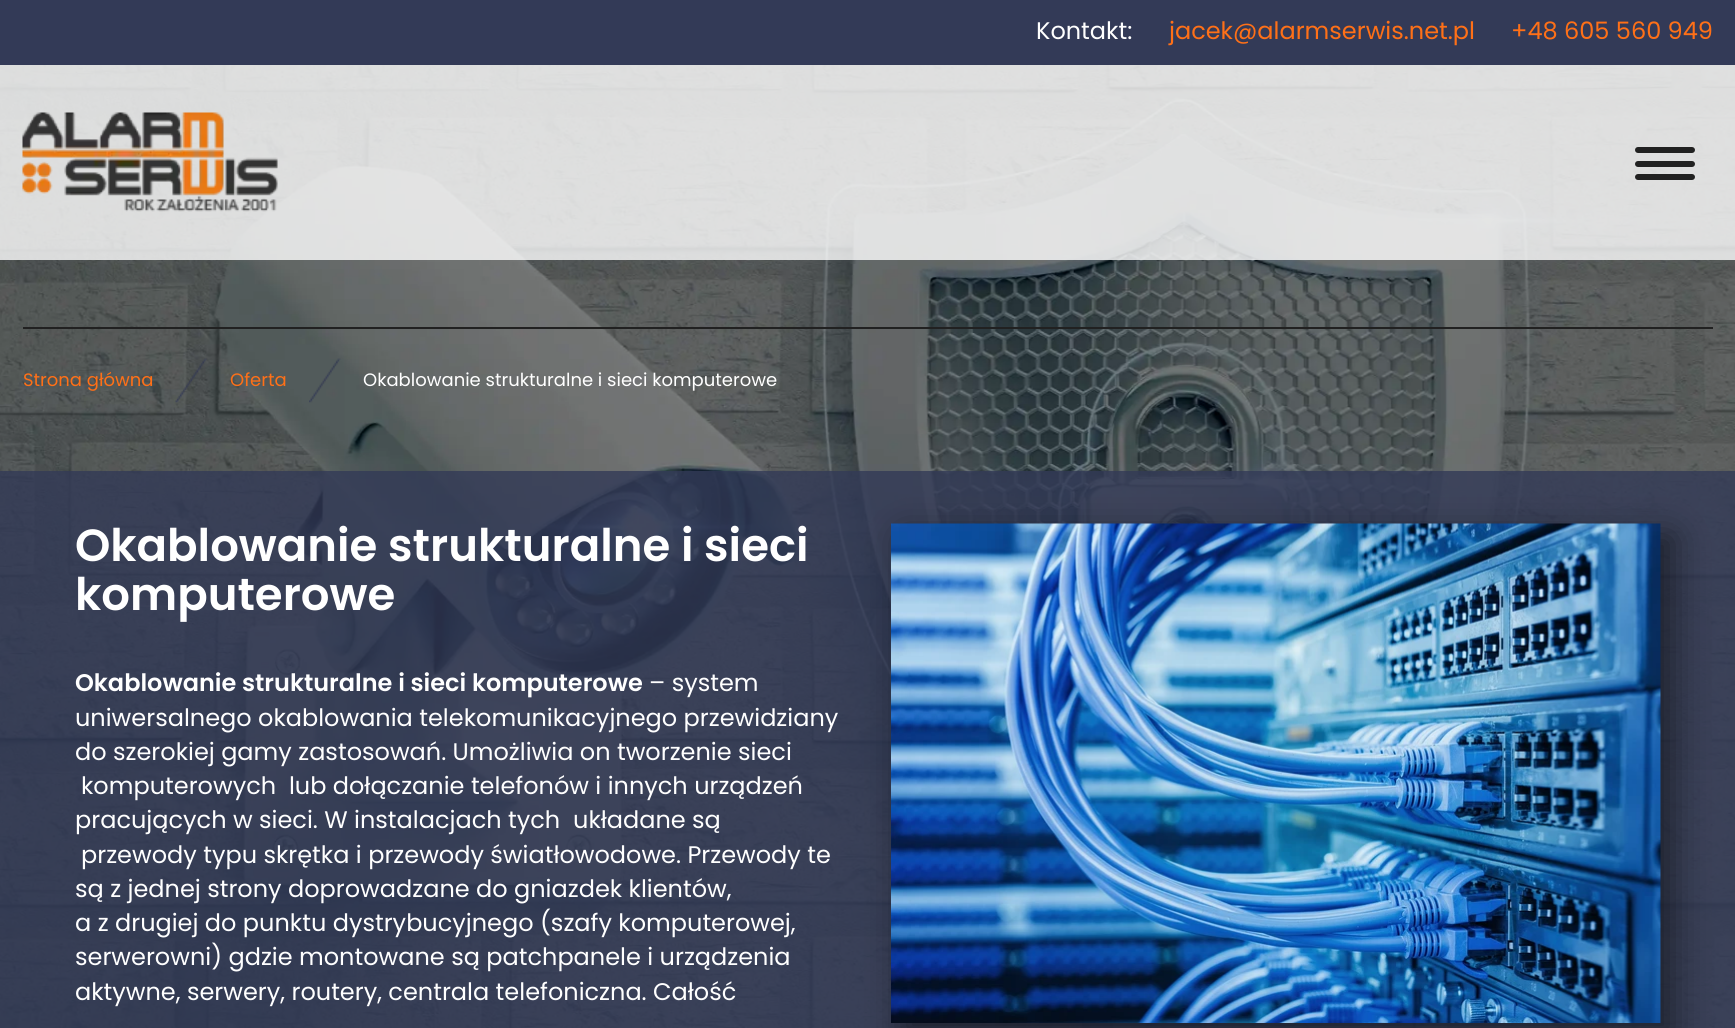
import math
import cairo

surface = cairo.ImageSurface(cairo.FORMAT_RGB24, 1735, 1028)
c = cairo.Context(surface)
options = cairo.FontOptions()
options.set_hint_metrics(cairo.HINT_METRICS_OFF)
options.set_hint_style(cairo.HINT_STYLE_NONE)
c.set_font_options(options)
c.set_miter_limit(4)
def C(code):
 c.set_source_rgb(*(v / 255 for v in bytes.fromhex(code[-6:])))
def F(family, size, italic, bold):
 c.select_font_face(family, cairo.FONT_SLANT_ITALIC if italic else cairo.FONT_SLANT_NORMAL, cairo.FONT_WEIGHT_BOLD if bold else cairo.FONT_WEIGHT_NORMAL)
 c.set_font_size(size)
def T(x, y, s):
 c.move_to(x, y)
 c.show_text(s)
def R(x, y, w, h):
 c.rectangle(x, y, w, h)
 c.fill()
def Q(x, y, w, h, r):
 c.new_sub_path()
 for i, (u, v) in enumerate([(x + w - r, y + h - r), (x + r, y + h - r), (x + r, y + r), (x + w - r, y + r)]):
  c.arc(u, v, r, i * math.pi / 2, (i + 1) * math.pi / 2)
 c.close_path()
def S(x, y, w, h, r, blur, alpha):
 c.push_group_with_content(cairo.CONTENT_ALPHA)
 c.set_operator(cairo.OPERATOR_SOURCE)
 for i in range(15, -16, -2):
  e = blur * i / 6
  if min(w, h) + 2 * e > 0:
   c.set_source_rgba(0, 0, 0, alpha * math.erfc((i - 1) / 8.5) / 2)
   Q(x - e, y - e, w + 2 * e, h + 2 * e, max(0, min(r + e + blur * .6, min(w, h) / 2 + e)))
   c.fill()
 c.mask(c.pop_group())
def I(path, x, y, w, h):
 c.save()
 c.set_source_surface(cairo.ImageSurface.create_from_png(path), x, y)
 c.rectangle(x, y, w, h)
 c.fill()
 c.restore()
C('ffffff')
c.paint()
I('5.png',0,65,1735,963)
c.set_source_rgba(1,1,1,0.8)
R(0,65,1735,195)
C('333a57')
R(0,0,1735,65)
F('Poppins',24,0,0)
C('ffffff')
T(1036,39,'Kontakt:')
C('ff7017')
T(1169,39,'jacek@alarmserwis.net.pl')
T(1511,39,'+48 605 560 949')
I('1.png',22,112,256,100)
C('212121')
Q(1635,147,60,6,3)
c.fill()
Q(1635,161,60,6,3)
c.fill()
Q(1635,174,60,6,3)
c.fill()
R(23,327,1690,2)
F('Poppins',18,0,0)
C('ff7017')
T(23,386,'Strona główna')
I('2.png',175,358,32,45)
T(230,386,'Oferta')
I('3.png',309,358,32,45)
C('ffffff')
T(363,386,'Okablowanie strukturalne i sieci komputerowe')
c.set_source_rgba(0.2,0.227,0.341,0.8)
R(0,471,1735,557)
F('Poppins SemiBold',45,0,0)
C('ffffff')
T(75,561,'Okablowanie strukturalne i sieci')
T(75,610,'komputerowe')
F('Poppins SemiBold',24,0,0)
T(75,691,'Okablowanie strukturalne i sieci komputerowe')
F('Poppins',24,0,0)
T(649,691,'– system')
T(75,726,'uniwersalnego okablowania telekomunikacyjnego przewidziany')
T(75,760,'do szerokiej gamy zastosowań. Umożliwia on tworzenie sieci')
T(81,794,'komputerowych  lub dołączanie telefonów i innych urządzeń')
T(75,828,'pracujących w sieci. W instalacjach tych  układane są')
T(81,863,'przewody typu skrętka i przewody światłowodowe. Przewody te')
T(75,897,'są z jednej strony doprowadzane do gniazdek klientów,')
T(75,931,'a z drugiej do punktu dystrybucyjnego (szafy komputerowej,')
T(75,965,'serwerowni) gdzie montowane są patchpanele i urządzenia')
T(75,1000,'aktywne, serwery, routery, centrala telefoniczna. Całość')
C('000000')
S(903,536,770,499,0,18,.5)
I('4.png',891,523,770,500)
surface.write_to_png('o.png')
